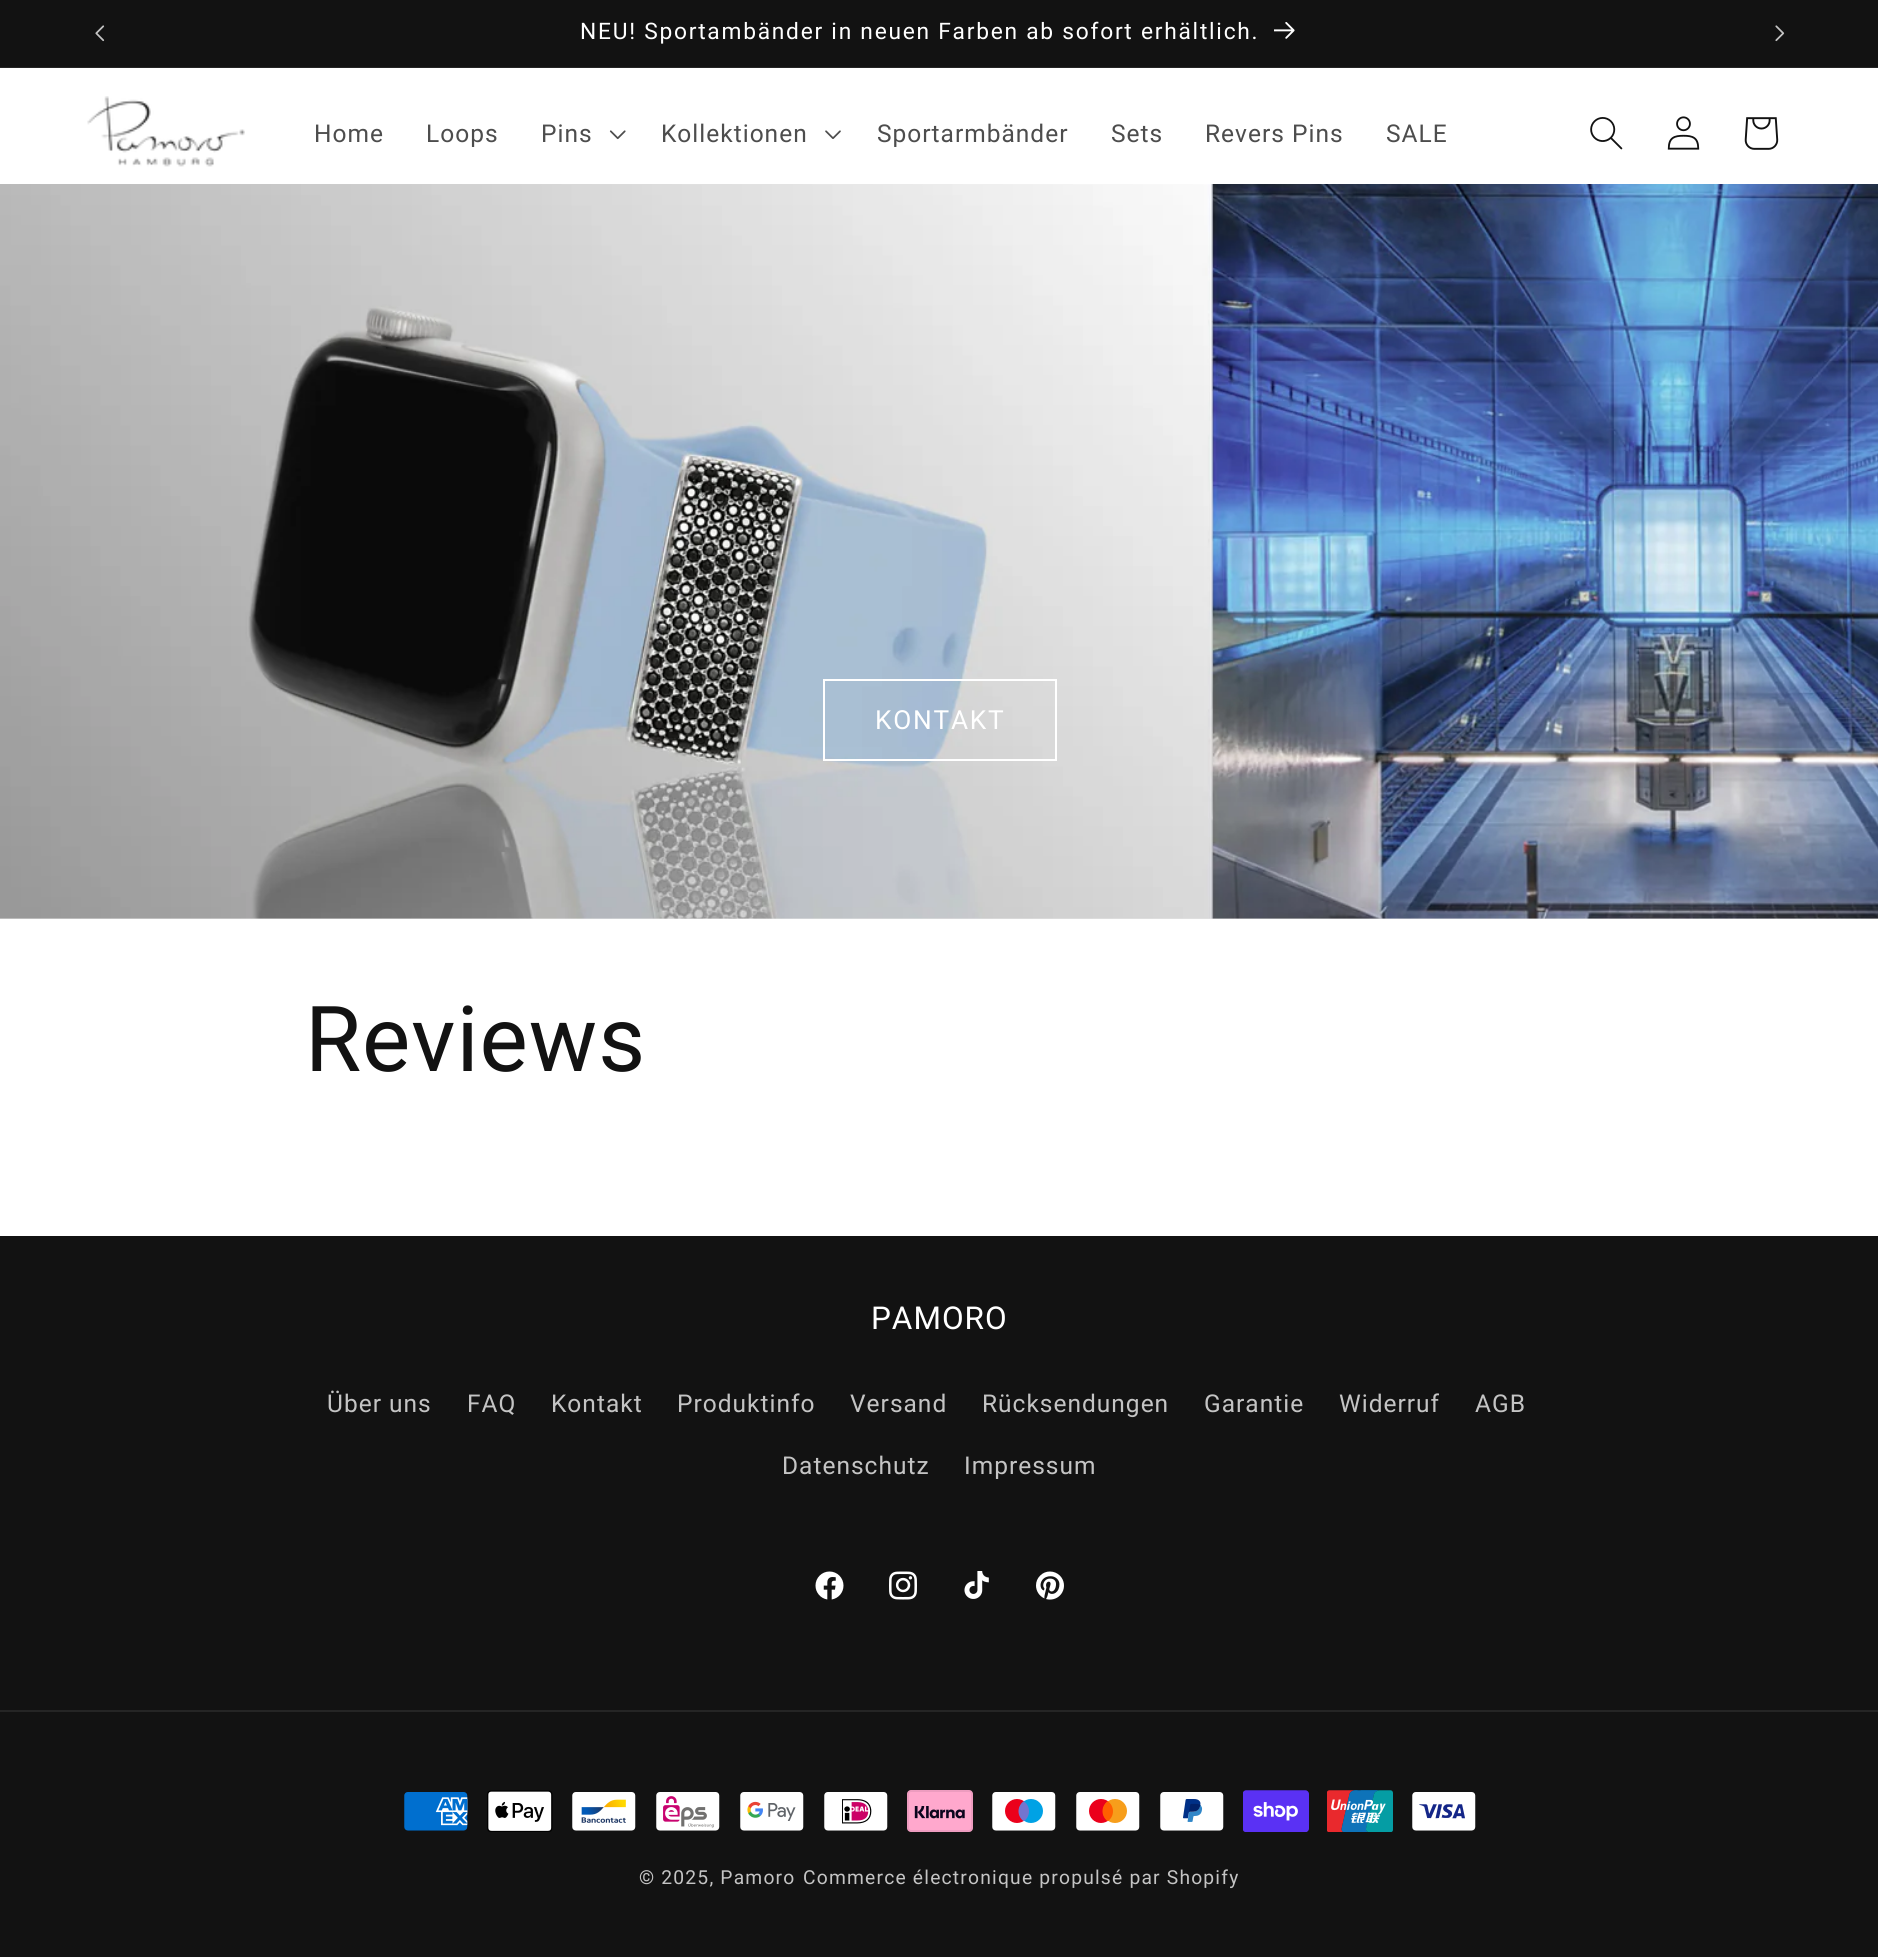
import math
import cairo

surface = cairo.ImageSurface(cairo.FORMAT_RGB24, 1878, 1957)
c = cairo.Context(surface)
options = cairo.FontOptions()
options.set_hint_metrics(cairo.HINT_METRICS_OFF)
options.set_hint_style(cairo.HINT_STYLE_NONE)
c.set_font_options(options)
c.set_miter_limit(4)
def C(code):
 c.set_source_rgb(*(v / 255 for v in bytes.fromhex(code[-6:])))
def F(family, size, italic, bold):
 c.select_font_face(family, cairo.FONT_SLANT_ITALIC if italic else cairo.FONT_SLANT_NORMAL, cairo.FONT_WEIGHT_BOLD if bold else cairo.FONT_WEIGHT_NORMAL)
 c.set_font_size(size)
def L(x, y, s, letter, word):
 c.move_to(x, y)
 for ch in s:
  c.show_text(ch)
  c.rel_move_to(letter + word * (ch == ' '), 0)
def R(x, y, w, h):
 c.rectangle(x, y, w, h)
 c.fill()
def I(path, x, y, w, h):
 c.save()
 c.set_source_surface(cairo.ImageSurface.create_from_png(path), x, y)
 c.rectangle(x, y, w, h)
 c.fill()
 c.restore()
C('ffffff')
c.paint()
C('121212')
R(0,0,1878,67)
C('252525')
R(0,67,1878,1)
I('1.png',95,25,10,17)
F('Roboto',22.75,0,0)
C('ffffff')
L(580,39,'NEU! Sportambänder in neuen Farben ab sofort erhältlich.',1.75,0)
I('2.png',1274,22,21,17)
I('3.png',1775,25,10,17)
I('4.png',87,96,158,71)
F('Roboto',24.5,0,0)
C('4d4d4d')
L(314,142,'Home',1,0)
L(426,142,'Loops',1,0)
L(541,142,'Pins',1,0)
I('5.png',609,130,17,10)
L(661,142,'Kollektionen',1,0)
I('6.png',825,130,16,9)
L(877,142,'Sportarmbänder',1,0)
L(1111,142,'Sets',1,0)
L(1205,142,'Revers Pins',1,0)
L(1386,142,'SALE',1,0)
I('7.png',1590,117,33,33)
I('8.png',1667,116,33,34)
I('9.png',1744,117,35,33)
C('e8e8e8')
R(0,918,1878,1)
I('10.png',0,184,1878,735)
c.rectangle(824,680,232,80)
C('ffffff')
c.stroke()
F('Roboto',26.25,0,0)
L(875,729,'KONTAKT',1.75,0)
F('Roboto',91,0,0)
C('121212')
L(305,1071,'Reviews',1,0)
R(0,1236,1878,721)
F('Roboto',31.5,0,0)
C('ffffff')
L(871,1329,'PAMORO',1,0)
F('Roboto',24.5,0,0)
C('c4c4c4')
L(327,1412,'Über uns',1,0)
L(467,1412,'FAQ',1,0)
L(551,1412,'Kontakt',1,0)
L(677,1412,'Produktinfo',1,0)
L(850,1412,'Versand',1,0)
L(982,1412,'Rücksendungen',1,0)
L(1204,1412,'Garantie',1,0)
L(1339,1412,'Widerruf',1,0)
L(1475,1412,'AGB',1,0)
L(782,1474,'Datenschutz',1,0)
L(964,1474,'Impressum',1,0)
I('11.png',815,1571,29,29)
I('12.png',889,1571,28,29)
I('13.png',964,1571,25,28)
I('14.png',1036,1571,28,29)
C('252525')
R(0,1710,1878,2)
I('15.png',404,1792,64,39)
I('16.png',487,1790,66,42)
I('17.png',572,1792,64,39)
I('18.png',656,1792,64,39)
I('19.png',740,1792,64,39)
I('20.png',824,1792,64,39)
I('21.png',907,1790,66,42)
I('22.png',992,1792,64,39)
I('23.png',1076,1792,64,39)
I('24.png',1160,1792,64,39)
I('25.png',1243,1790,66,42)
I('26.png',1327,1790,66,42)
I('27.png',1412,1792,64,39)
F('Roboto',19.25,0,0)
C('c4c4c4')
L(639,1884,'© 2025, Pamoro',1.2,0)
L(803,1884,'Commerce électronique propulsé par Shopify',1.2,0)
surface.write_to_png('o.png')
